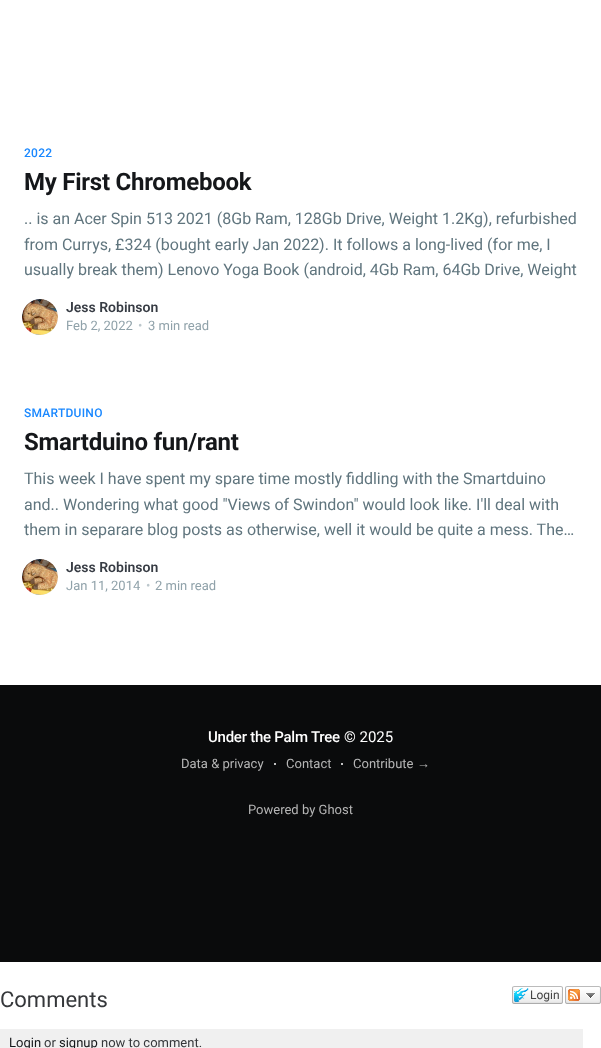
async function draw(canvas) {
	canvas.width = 601;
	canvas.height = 1048;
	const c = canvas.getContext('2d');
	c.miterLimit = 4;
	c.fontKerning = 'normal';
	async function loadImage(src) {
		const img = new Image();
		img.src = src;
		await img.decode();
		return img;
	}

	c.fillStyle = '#fff';
	c.fillRect(0, 0, 601, 1048);
	c.letterSpacing = '0.25px';
	c.font = '500 12px Roboto';
	c.fillStyle = '#1a88ff';
	c.fillText('2022', 24, 157);
	c.letterSpacing = '-0.25px';
	c.font = 'bold 24px Roboto';
	c.fillStyle = '#15171a';
	c.fillText('My First Chromebook', 24, 190);
	c.letterSpacing = '0px';
	c.font = '16px Roboto';
	c.fillStyle = '#60757e';
	for (const [text, x, y] of [
		['.. is an Acer Spin 513 2021 (8Gb Ram, 128Gb Drive, Weight 1.2Kg), refurbished', 24, 224],
		['from Currys, £324 (bought early Jan 2022). It follows a long-lived (for me, I', 24, 250],
		['usually break them) Lenovo Yoga Book (android, 4Gb Ram, 64Gb Drive, Weight', 24, 275],
	]) {
		c.fillText(text, x, y);
	}
	c.fillStyle = '#e4eaed';
	c.beginPath();
	c.arc(40, 317, 18, 0, 2 * Math.PI);
	c.fill();
	c.drawImage(await loadImage('img1.png'), 22, 299, 36, 36);
	c.font = '600 14px Roboto';
	c.fillStyle = '#373c44';
	c.fillText('Jess Robinson', 66, 312);
	c.font = '13px Roboto';
	c.fillStyle = '#90a2aa';
	c.fillText('Feb 2, 2022', 66, 330);
	c.fillStyle = '#bcc7cc';
	c.fillText('•', 138, 330);
	c.fillStyle = '#90a2aa';
	c.fillText('3 min read', 148, 330);
	c.letterSpacing = '0.25px';
	c.font = '500 12px Roboto';
	c.fillStyle = '#1a88ff';
	c.fillText('SMARTDUINO', 24, 417);
	c.letterSpacing = '-0.25px';
	c.font = 'bold 24px Roboto';
	c.fillStyle = '#15171a';
	c.fillText('Smartduino fun/rant', 24, 450);
	c.letterSpacing = '0px';
	c.font = '16px Roboto';
	c.fillStyle = '#60757e';
	for (const [text, x, y] of [
		['This week I have spent my spare time mostly fiddling with the Smartduino', 24, 484],
		['and.. Wondering what good "Views of Swindon" would look like. I\'ll deal with', 24, 510],
		['them in separare blog posts as otherwise, well it would be quite a mess. The…', 24, 535],
	]) {
		c.fillText(text, x, y);
	}
	c.fillStyle = '#e4eaed';
	c.beginPath();
	c.arc(40, 577, 18, 0, 2 * Math.PI);
	c.fill();
	c.drawImage(await loadImage('img2.png'), 22, 559, 36, 36);
	c.font = '600 14px Roboto';
	c.fillStyle = '#373c44';
	c.fillText('Jess Robinson', 66, 572);
	c.font = '13px Roboto';
	c.fillStyle = '#90a2aa';
	c.fillText('Jan 11, 2014', 66, 590);
	c.fillStyle = '#bcc7cc';
	c.fillText('•', 146, 590);
	c.fillStyle = '#90a2aa';
	c.fillText('2 min read', 155, 590);
	c.fillStyle = '#0a0b0c';
	c.fillRect(0, 685, 601, 277);
	c.letterSpacing = '-0.25px';
	c.font = '500 15px Roboto';
	c.fillStyle = '#fff';
	c.fillText('Under the Palm Tree', 208, 742);
	c.letterSpacing = '0px';
	c.font = '15px Roboto';
	c.fillText('© 2025', 344, 742);
	c.font = '13px Roboto';
	c.fillStyle = '#b6b6b6';
	c.fillText('Data & privacy', 181, 768);
	c.fillStyle = '#fff';
	c.beginPath();
	c.arc(275, 764, 1, 0, 2 * Math.PI);
	c.fill();
	c.fillStyle = '#b6b6b6';
	c.fillText('Contact', 286, 768);
	c.fillStyle = '#fff';
	c.beginPath();
	c.arc(342, 764, 1, 0, 2 * Math.PI);
	c.fill();
	c.fillStyle = '#b6b6b6';
	c.fillText('Contribute', 353, 768);
	c.font = '13px Liberation Sans';
	c.fillText('→', 417, 768);
	c.font = '13px Roboto';
	c.fillText('Powered by Ghost', 248, 814);
	c.font = '22px Roboto';
	c.fillStyle = '#35373a';
	c.fillText('Comments', 0, 1007);
	c.drawImage(await loadImage('img3.png'), 512, 986, 48, 18);
	c.font = '12px Roboto';
	c.fillStyle = '#444';
	c.fillText('Login', 530, 999);
	c.drawImage(await loadImage('img4.png'), 560, 986, 3, 18);
	c.drawImage(await loadImage('img5.png'), 565, 986, 36, 18);
	c.fillStyle = '#f0f0f0';
	c.fillRect(0, 1029, 583, 19);
	c.font = '13px Roboto';
	c.fillStyle = '#15171a';
	c.fillText('Login', 9, 1047);
	c.fillStyle = '#35373a';
	c.fillText('or', 44, 1047);
	c.fillStyle = '#15171a';
	c.fillText('signup', 59, 1047);
	c.fillStyle = '#35373a';
	c.fillText('now to comment.', 101, 1047);
}

draw(document.querySelector('canvas'));
